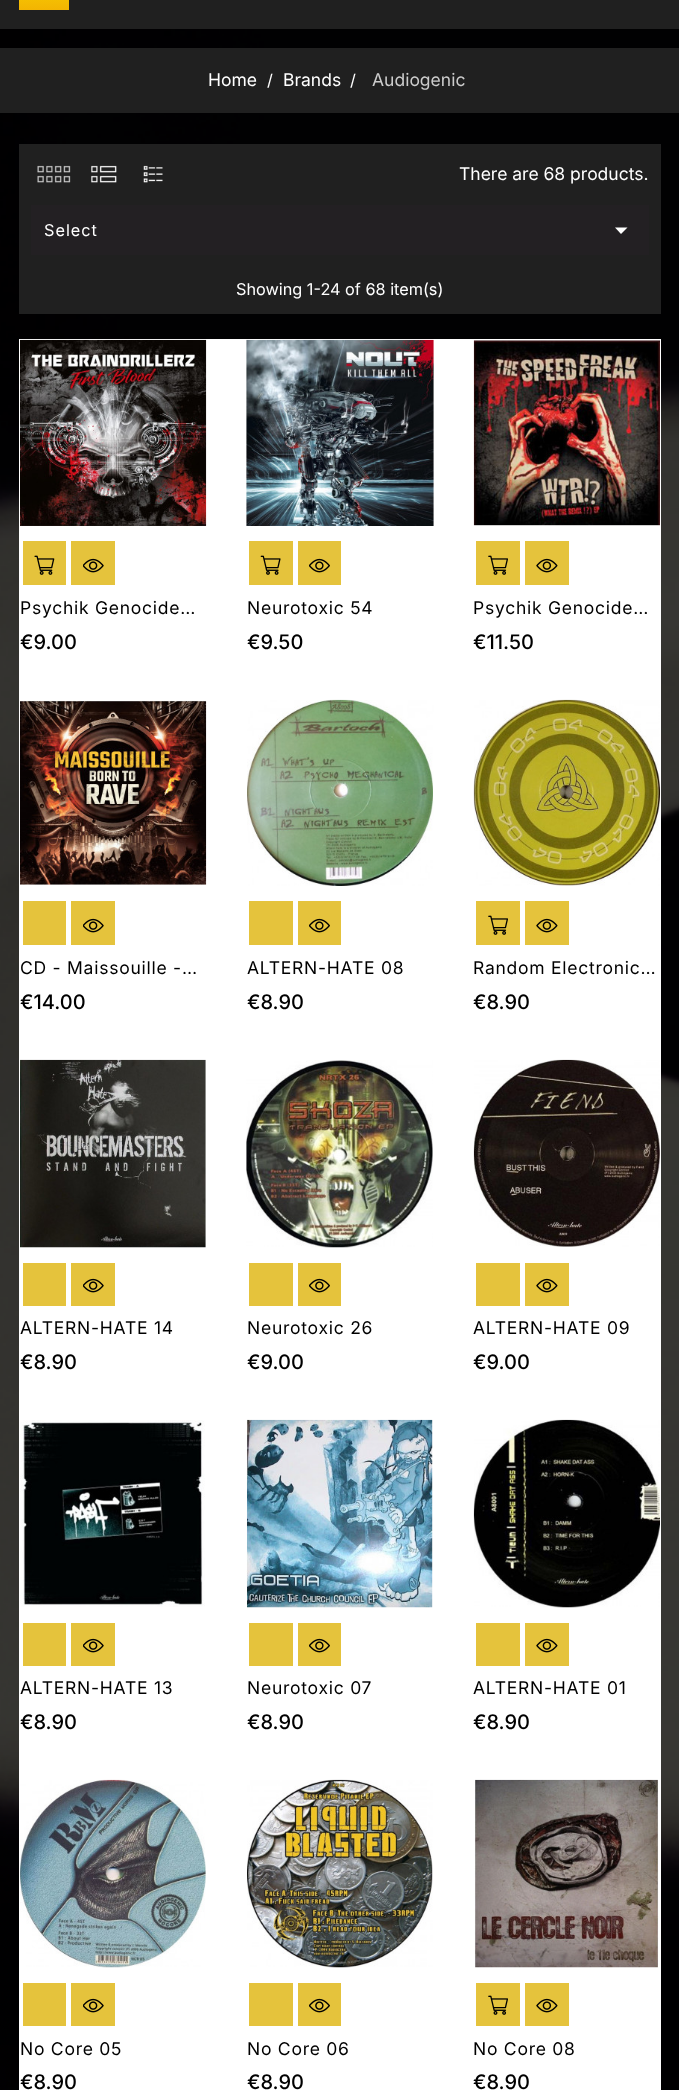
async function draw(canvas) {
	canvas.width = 679;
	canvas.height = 2090;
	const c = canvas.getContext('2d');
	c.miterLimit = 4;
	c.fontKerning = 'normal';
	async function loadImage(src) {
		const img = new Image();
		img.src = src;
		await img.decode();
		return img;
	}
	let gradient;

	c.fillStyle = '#fff';
	c.fillRect(0, 0, 679, 2090);
	c.drawImage(await loadImage('img1.png'), 0, 29, 679, 2061);
	c.fillStyle = '#202020';
	c.fillRect(0, 0, 679, 29);
	gradient = c.createLinearGradient(44, 10, 44, -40);
	gradient.addColorStop(0, '#f3b402');
	gradient.addColorStop(1, '#fbe600');
	c.fillStyle = gradient;
	c.fillRect(19, 0, 50, 10);
	c.fillStyle = '#202020';
	c.fillRect(0, 48, 679, 65);
	c.font = '17.5px Inter';
	c.fillStyle = '#fff';
	c.fillText('Home', 208, 86);
	c.font = '16.25px Inter';
	c.fillText('/', 267, 86);
	c.font = '17.5px Inter';
	c.fillText('Brands', 283, 86);
	c.font = '16.25px Inter';
	c.fillText('/', 350, 86);
	c.font = '17.5px Inter';
	c.fillStyle = '#ccc';
	c.fillText('Audiogenic', 372, 86);
	c.fillStyle = '#202020';
	c.fillRect(19, 144, 642, 170);
	c.drawImage(await loadImage('img2.png'), 37, 165, 34, 18);
	c.drawImage(await loadImage('img3.png'), 91, 165, 26, 18);
	c.drawImage(await loadImage('img4.png'), 143, 165, 20, 18);
	c.fillStyle = '#fff';
	c.fillText('There are 68 products.', 459, 180);
	c.fillStyle = '#232023';
	c.fillRect(31, 205, 618, 50);
	c.letterSpacing = '1px';
	c.font = '16.25px Inter';
	c.fillStyle = '#fff';
	c.fillText('Select', 44, 236);
	c.beginPath();
	c.moveTo(615, 227.5);
	c.lineTo(627.5, 227.5);
	c.lineTo(621, 234);
	c.closePath();
	c.fill();
	c.letterSpacing = '0px';
	c.fillText('Showing 1-24 of 68 item(s)', 236, 295);
	c.fillRect(19, 339, 642, 1751);
	c.drawImage(await loadImage('img5.png'), 20, 339, 187, 187);
	c.fillStyle = '#e5c33c';
	c.fillRect(23, 541, 43, 44);
	c.drawImage(await loadImage('img6.png'), 34, 555, 21, 20);
	c.fillRect(71, 541, 44, 44);
	c.drawImage(await loadImage('img7.png'), 83, 558, 21, 15);
	c.letterSpacing = '0.75px';
	c.font = '17.5px Inter';
	c.fillStyle = '#000';
	c.fillText('Psychik Genocide…', 20, 614);
	c.letterSpacing = '0px';
	c.font = '500 20px Inter';
	c.fillText('€9.00', 20, 649);
	c.drawImage(await loadImage('img8.png'), 246, 339, 188, 187);
	c.fillStyle = '#e5c33c';
	c.fillRect(249, 541, 44, 44);
	c.drawImage(await loadImage('img9.png'), 260, 555, 21, 20);
	c.fillRect(298, 541, 43, 44);
	c.drawImage(await loadImage('img10.png'), 309, 558, 21, 15);
	c.letterSpacing = '0.75px';
	c.font = '17.5px Inter';
	c.fillStyle = '#000';
	c.fillText('Neurotoxic 54', 247, 614);
	c.letterSpacing = '0px';
	c.font = '500 20px Inter';
	c.fillText('€9.50', 247, 649);
	c.drawImage(await loadImage('img11.png'), 473, 340, 187, 186);
	c.fillStyle = '#e5c33c';
	c.fillRect(476, 541, 44, 44);
	c.drawImage(await loadImage('img12.png'), 488, 555, 20, 20);
	c.fillRect(525, 541, 44, 44);
	c.drawImage(await loadImage('img13.png'), 536, 558, 22, 15);
	c.letterSpacing = '0.75px';
	c.font = '17.5px Inter';
	c.fillStyle = '#000';
	c.fillText('Psychik Genocide…', 473, 614);
	c.letterSpacing = '0px';
	c.font = '500 20px Inter';
	c.fillText('€11.50', 473, 649);
	c.drawImage(await loadImage('img14.png'), 20, 700, 187, 185);
	c.fillStyle = '#e5c33c';
	c.fillRect(23, 901, 43, 44);
	c.fillRect(71, 901, 44, 44);
	c.drawImage(await loadImage('img7.png'), 83, 918, 21, 15);
	c.letterSpacing = '0.75px';
	c.font = '17.5px Inter';
	c.fillStyle = '#000';
	c.fillText('CD - Maissouille -…', 20, 974);
	c.letterSpacing = '0px';
	c.font = '500 20px Inter';
	c.fillText('€14.00', 20, 1009);
	c.drawImage(await loadImage('img15.png'), 247, 699, 187, 187);
	c.fillStyle = '#e5c33c';
	c.fillRect(249, 901, 44, 44);
	c.fillRect(298, 901, 43, 44);
	c.drawImage(await loadImage('img10.png'), 309, 918, 21, 15);
	c.letterSpacing = '0.75px';
	c.font = '17.5px Inter';
	c.fillStyle = '#000';
	c.fillText('ALTERN-HATE 08', 247, 974);
	c.letterSpacing = '0px';
	c.font = '500 20px Inter';
	c.fillText('€8.90', 247, 1009);
	c.drawImage(await loadImage('img16.png'), 473, 699, 187, 187);
	c.fillStyle = '#e5c33c';
	c.fillRect(476, 901, 44, 44);
	c.drawImage(await loadImage('img12.png'), 488, 915, 20, 20);
	c.fillRect(525, 901, 44, 44);
	c.drawImage(await loadImage('img13.png'), 536, 918, 22, 15);
	c.letterSpacing = '0.75px';
	c.font = '17.5px Inter';
	c.fillStyle = '#000';
	c.fillText('Random Electronic…', 473, 974);
	c.letterSpacing = '0px';
	c.font = '500 20px Inter';
	c.fillText('€8.90', 473, 1009);
	c.drawImage(await loadImage('img17.png'), 20, 1059, 186, 189);
	c.fillStyle = '#e5c33c';
	c.fillRect(23, 1263, 43, 43);
	c.fillRect(71, 1263, 44, 43);
	c.drawImage(await loadImage('img7.png'), 83, 1278, 21, 15);
	c.letterSpacing = '0.75px';
	c.font = '17.5px Inter';
	c.fillStyle = '#000';
	c.fillText('ALTERN-HATE 14', 20, 1334);
	c.letterSpacing = '0px';
	c.font = '500 20px Inter';
	c.fillText('€8.90', 20, 1369);
	c.drawImage(await loadImage('img18.png'), 246, 1060, 187, 188);
	c.fillStyle = '#e5c33c';
	c.fillRect(249, 1263, 44, 43);
	c.fillRect(298, 1263, 43, 43);
	c.drawImage(await loadImage('img10.png'), 309, 1278, 21, 15);
	c.letterSpacing = '0.75px';
	c.font = '17.5px Inter';
	c.fillStyle = '#000';
	c.fillText('Neurotoxic 26', 247, 1334);
	c.letterSpacing = '0px';
	c.font = '500 20px Inter';
	c.fillText('€9.00', 247, 1369);
	c.drawImage(await loadImage('img19.png'), 473, 1059, 187, 188);
	c.fillStyle = '#e5c33c';
	c.fillRect(476, 1263, 44, 43);
	c.fillRect(525, 1263, 44, 43);
	c.drawImage(await loadImage('img13.png'), 536, 1278, 22, 15);
	c.letterSpacing = '0.75px';
	c.font = '17.5px Inter';
	c.fillStyle = '#000';
	c.fillText('ALTERN-HATE 09', 473, 1334);
	c.letterSpacing = '0px';
	c.font = '500 20px Inter';
	c.fillText('€9.00', 473, 1369);
	c.drawImage(await loadImage('img20.png'), 20, 1420, 185, 187);
	c.fillStyle = '#e5c33c';
	c.fillRect(23, 1623, 43, 43);
	c.fillRect(71, 1623, 44, 43);
	c.drawImage(await loadImage('img7.png'), 83, 1638, 21, 15);
	c.letterSpacing = '0.75px';
	c.font = '17.5px Inter';
	c.fillStyle = '#000';
	c.fillText('ALTERN-HATE 13', 20, 1694);
	c.letterSpacing = '0px';
	c.font = '500 20px Inter';
	c.fillText('€8.90', 20, 1729);
	c.drawImage(await loadImage('img21.png'), 246, 1419, 187, 189);
	c.fillStyle = '#e5c33c';
	c.fillRect(249, 1623, 44, 43);
	c.fillRect(298, 1623, 43, 43);
	c.drawImage(await loadImage('img10.png'), 309, 1638, 21, 15);
	c.letterSpacing = '0.75px';
	c.font = '17.5px Inter';
	c.fillStyle = '#000';
	c.fillText('Neurotoxic 07', 247, 1694);
	c.letterSpacing = '0px';
	c.font = '500 20px Inter';
	c.fillText('€8.90', 247, 1729);
	c.drawImage(await loadImage('img22.png'), 473, 1419, 187, 189);
	c.fillStyle = '#e5c33c';
	c.fillRect(476, 1623, 44, 43);
	c.fillRect(525, 1623, 44, 43);
	c.drawImage(await loadImage('img13.png'), 536, 1638, 22, 15);
	c.letterSpacing = '0.75px';
	c.font = '17.5px Inter';
	c.fillStyle = '#000';
	c.fillText('ALTERN-HATE 01', 473, 1694);
	c.letterSpacing = '0px';
	c.font = '500 20px Inter';
	c.fillText('€8.90', 473, 1729);
	c.drawImage(await loadImage('img23.png'), 20, 1779, 186, 189);
	c.fillStyle = '#e5c33c';
	c.fillRect(23, 1983, 43, 43);
	c.fillRect(71, 1983, 44, 43);
	c.drawImage(await loadImage('img7.png'), 83, 1998, 21, 15);
	c.letterSpacing = '0.75px';
	c.font = '17.5px Inter';
	c.fillStyle = '#000';
	c.fillText('No Core 05', 20, 2055);
	c.letterSpacing = '0px';
	c.font = '500 20px Inter';
	c.fillText('€8.90', 20, 2089);
	c.drawImage(await loadImage('img24.png'), 247, 1779, 186, 189);
	c.fillStyle = '#e5c33c';
	c.fillRect(249, 1983, 44, 43);
	c.fillRect(298, 1983, 43, 43);
	c.drawImage(await loadImage('img10.png'), 309, 1998, 21, 15);
	c.letterSpacing = '0.75px';
	c.font = '17.5px Inter';
	c.fillStyle = '#000';
	c.fillText('No Core 06', 247, 2055);
	c.letterSpacing = '0px';
	c.font = '500 20px Inter';
	c.fillText('€8.90', 247, 2089);
	c.drawImage(await loadImage('img25.png'), 474, 1779, 185, 189);
	c.fillStyle = '#e5c33c';
	c.fillRect(476, 1983, 44, 43);
	c.drawImage(await loadImage('img12.png'), 488, 1995, 20, 20);
	c.fillRect(525, 1983, 44, 43);
	c.drawImage(await loadImage('img13.png'), 536, 1998, 22, 15);
	c.letterSpacing = '0.75px';
	c.font = '17.5px Inter';
	c.fillStyle = '#000';
	c.fillText('No Core 08', 473, 2055);
	c.letterSpacing = '0px';
	c.font = '500 20px Inter';
	c.fillText('€8.90', 473, 2089);
}

draw(document.querySelector('canvas'));
